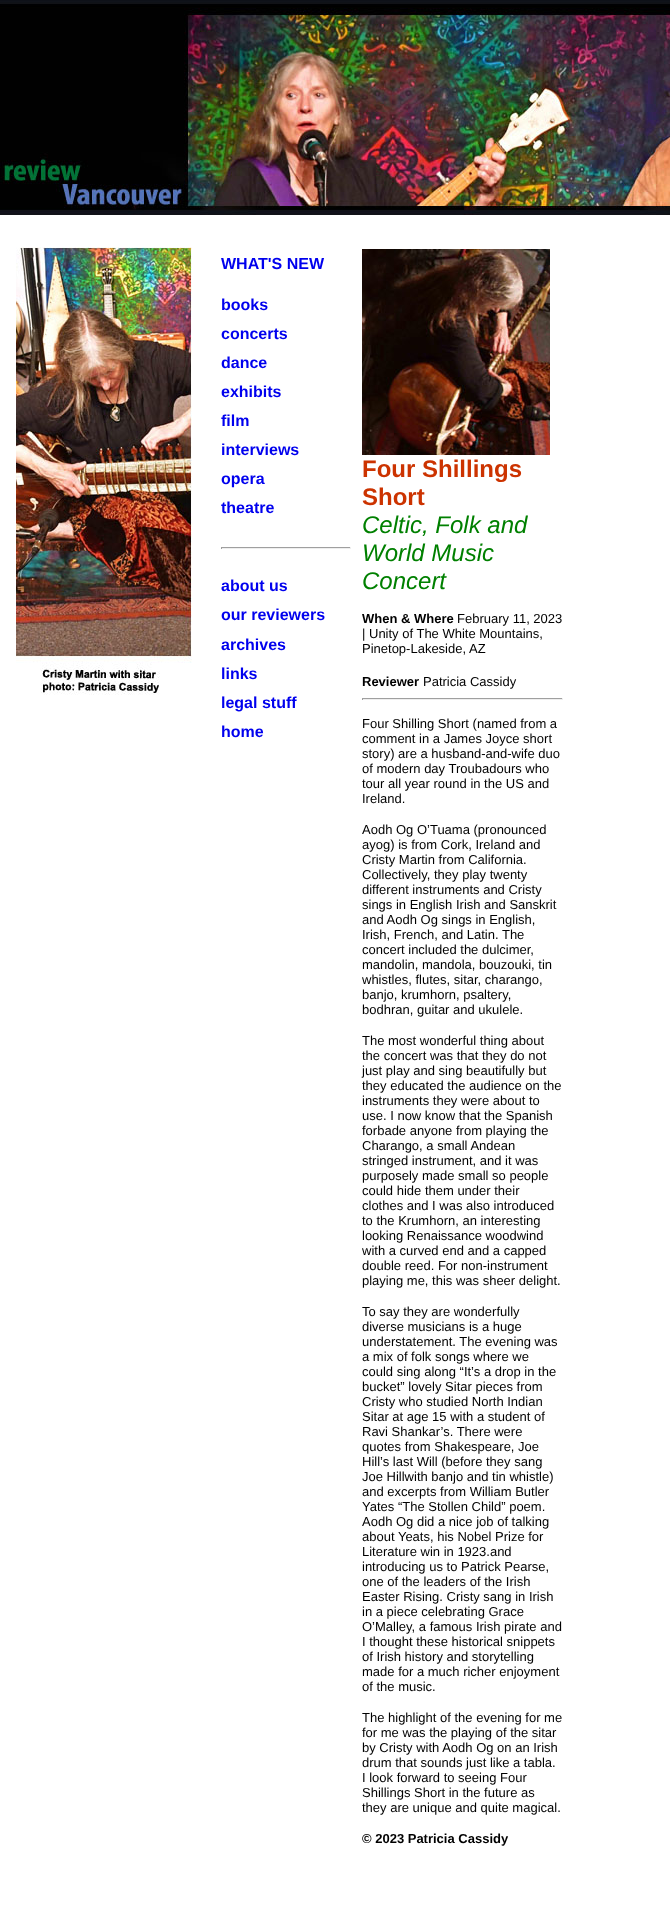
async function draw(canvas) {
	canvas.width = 670;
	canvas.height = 1922;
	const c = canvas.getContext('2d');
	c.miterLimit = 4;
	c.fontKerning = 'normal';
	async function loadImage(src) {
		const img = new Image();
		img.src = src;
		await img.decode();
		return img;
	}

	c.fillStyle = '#fff';
	c.fillRect(0, 0, 670, 1922);
	c.drawImage(await loadImage('img1.png'), 0, 0, 670, 215);
	c.drawImage(await loadImage('img2.png'), 16, 247, 176, 448);
	c.font = 'bold 16px Liberation Sans';
	c.fillStyle = '#00e';
	for (const [text, x, y] of [
		['WHAT\'S NEW', 221, 269],
		['books', 221, 310],
		['concerts', 221, 339],
		['dance', 221, 368],
		['exhibits', 221, 397],
		['film', 221, 426],
		['interviews', 221, 455],
		['opera', 221, 484],
		['theatre', 221, 513],
	]) {
		c.fillText(text, x, y);
	}
	for (const [x, y, w, h, color] of [
		[221, 547, 130, 1, '#9f9f9f'],
		[350, 547, 1, 2, '#eee'],
		[221, 548, 130, 1, '#eee'],
		[221, 547, 1, 2, '#9f9f9f'],
	]) {
		c.fillStyle = color;
		c.fillRect(x, y, w, h);
	}
	c.fillStyle = '#00e';
	for (const [text, x, y] of [
		['about us', 221, 591],
		['our reviewers', 221, 620],
		['archives', 221, 650],
		['links', 221, 679],
		['legal stuff', 221, 708],
		['home', 221, 737],
	]) {
		c.fillText(text, x, y);
	}
	c.drawImage(await loadImage('img3.png'), 362, 249, 188, 206);
	c.font = 'bold 24px Liberation Sans';
	c.fillStyle = '#c30';
	c.fillText('Four Shillings', 362, 477);
	c.fillText('Short', 362, 505);
	c.font = 'italic 24px Liberation Sans';
	c.fillStyle = '#008000';
	for (const [text, x, y] of [
		['Celtic, Folk and', 362, 533],
		['World Music', 362, 561],
		['Concert', 362, 589],
	]) {
		c.fillText(text, x, y);
	}
	c.font = 'bold 13px Liberation Sans';
	c.fillStyle = '#000';
	c.fillText('When & Where', 362, 623);
	c.font = '13px Liberation Sans';
	for (const [text, x, y] of [
		['February 11, 2023', 457, 623],
		['| Unity of The White Mountains,', 362, 638],
		['Pinetop-Lakeside, AZ', 362, 653],
	]) {
		c.fillText(text, x, y);
	}
	c.font = 'bold 13px Liberation Sans';
	c.fillText('Reviewer', 362, 686);
	c.font = '13px Liberation Sans';
	c.fillText('Patricia Cassidy', 423, 686);
	for (const [x, y, w, h, color] of [
		[362, 698, 201, 1, '#9f9f9f'],
		[562, 698, 1, 2, '#eee'],
		[362, 699, 201, 1, '#eee'],
		[362, 698, 1, 2, '#9f9f9f'],
	]) {
		c.fillStyle = color;
		c.fillRect(x, y, w, h);
	}
	c.fillStyle = '#000';
	for (const [text, x, y] of [
		['Four Shilling Short (named from a', 362, 728],
		['comment in a James Joyce short', 362, 743],
		['story) are a husband-and-wife duo', 362, 758],
		['of modern day Troubadours who', 362, 773],
		['tour all year round in the US and', 362, 788],
		['Ireland.', 362, 803],
		['Aodh Og O’Tuama (pronounced', 362, 834],
		['ayog) is from Cork, Ireland and', 362, 849],
		['Cristy Martin from California.', 362, 864],
		['Collectively, they play twenty', 362, 879],
		['different instruments and Cristy', 362, 894],
		['sings in English Irish and Sanskrit', 362, 909],
		['and Aodh Og sings in English,', 362, 924],
		['Irish, French, and Latin. The', 362, 939],
		['concert included the dulcimer,', 362, 954],
		['mandolin, mandola, bouzouki, tin', 362, 969],
		['whistles, flutes, sitar, charango,', 362, 984],
		['banjo, krumhorn, psaltery,', 362, 999],
		['bodhran, guitar and ukulele.', 362, 1014],
		['The most wonderful thing about', 362, 1045],
		['the concert was that they do not', 362, 1060],
		['just play and sing beautifully but', 362, 1075],
		['they educated the audience on the', 362, 1090],
		['instruments they were about to', 362, 1105],
		['use. I now know that the Spanish', 362, 1120],
		['forbade anyone from playing the', 362, 1135],
		['Charango, a small Andean', 362, 1150],
		['stringed instrument, and it was', 362, 1165],
		['purposely made small so people', 362, 1180],
		['could hide them under their', 362, 1195],
		['clothes and I was also introduced', 362, 1210],
		['to the Krumhorn, an interesting', 362, 1225],
		['looking Renaissance woodwind', 362, 1240],
		['with a curved end and a capped', 362, 1255],
		['double reed. For non-instrument', 362, 1270],
		['playing me, this was sheer delight.', 362, 1285],
		['To say they are wonderfully', 362, 1316],
		['diverse musicians is a huge', 362, 1331],
		['understatement. The evening was', 362, 1346],
		['a mix of folk songs where we', 362, 1361],
		['could sing along “It’s a drop in the', 362, 1376],
		['bucket” lovely Sitar pieces from', 362, 1391],
		['Cristy who studied North Indian', 362, 1406],
		['Sitar at age 15 with a student of', 362, 1421],
		['Ravi Shankar’s. There were', 362, 1436],
		['quotes from Shakespeare, Joe', 362, 1451],
		['Hill’s last Will (before they sang', 362, 1466],
		['Joe Hillwith banjo and tin whistle)', 362, 1481],
		['and excerpts from William Butler', 362, 1496],
		['Yates “The Stollen Child” poem.', 362, 1511],
		['Aodh Og did a nice job of talking', 362, 1526],
		['about Yeats, his Nobel Prize for', 362, 1541],
		['Literature win in 1923.and', 362, 1556],
		['introducing us to Patrick Pearse,', 362, 1571],
		['one of the leaders of the Irish', 362, 1586],
		['Easter Rising. Cristy sang in Irish', 362, 1601],
		['in a piece celebrating Grace', 362, 1616],
		['O’Malley, a famous Irish pirate and', 362, 1631],
		['I thought these historical snippets', 362, 1646],
		['of Irish history and storytelling', 362, 1661],
		['made for a much richer enjoyment', 362, 1676],
		['of the music.', 362, 1691],
		['The highlight of the evening for me', 362, 1722],
		['for me was the playing of the sitar', 362, 1737],
		['by Cristy with Aodh Og on an Irish', 362, 1752],
		['drum that sounds just like a tabla.', 362, 1767],
		['I look forward to seeing Four', 362, 1782],
		['Shillings Short in the future as', 362, 1797],
		['they are unique and quite magical.', 362, 1812],
	]) {
		c.fillText(text, x, y);
	}
	c.font = 'bold 13px Liberation Sans';
	c.fillText('© 2023 Patricia Cassidy', 362, 1843);
}

draw(document.querySelector('canvas'));
